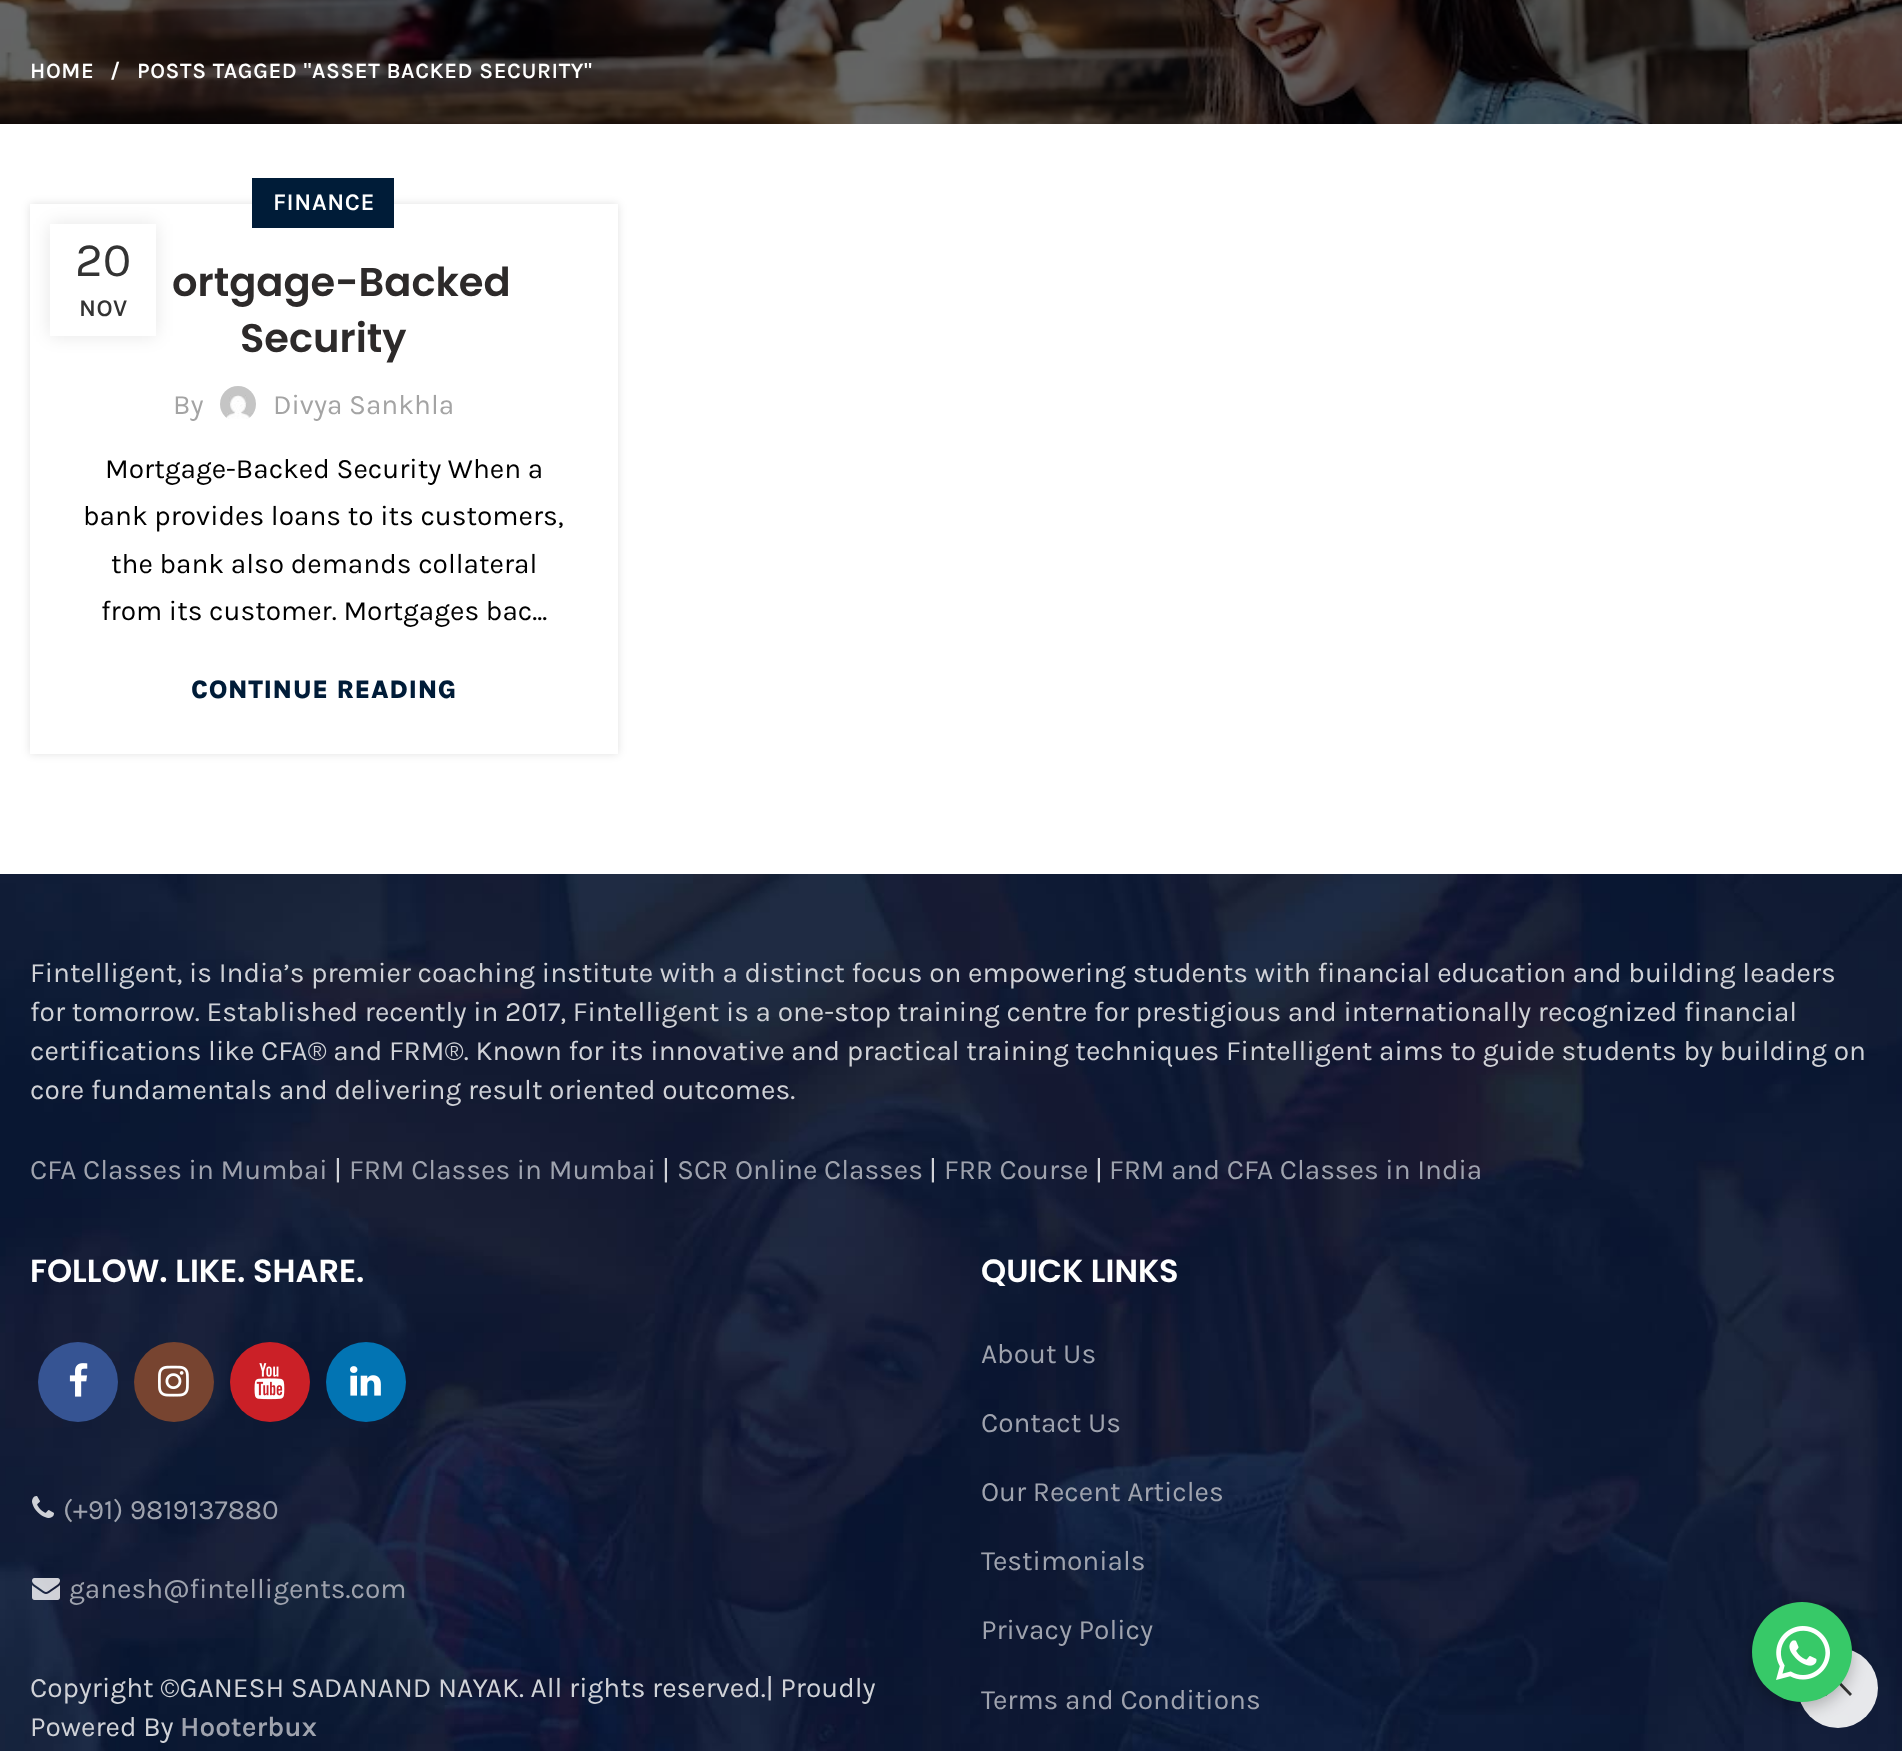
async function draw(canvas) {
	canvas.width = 1902;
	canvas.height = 1751;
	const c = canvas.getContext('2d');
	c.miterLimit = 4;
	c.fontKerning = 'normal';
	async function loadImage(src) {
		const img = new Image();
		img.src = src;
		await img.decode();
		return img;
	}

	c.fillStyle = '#fff';
	c.fillRect(0, 0, 1902, 1751);
	c.drawImage(await loadImage('img1.png'), 0, 0, 1902, 124);
	c.letterSpacing = '0.6px';
	c.font = '600 22px Karla';
	for (const [text, x, y] of [
		['HOME', 30, 78],
		['/', 110, 78],
		['POSTS TAGGED "ASSET BACKED SECURITY"', 137, 78],
	]) {
		c.fillText(text, x, y);
	}
	c.save();
	c.beginPath();
	c.moveTo(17, 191);
	c.lineTo(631, 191);
	c.lineTo(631, 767);
	c.lineTo(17, 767);
	c.closePath();
	c.moveTo(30, 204);
	c.lineTo(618, 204);
	c.lineTo(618, 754);
	c.lineTo(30, 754);
	c.closePath();
	c.clip('evenodd');
	c.fillStyle = '#0000001f';
	c.filter = 'blur(4px)';
	c.beginPath();
	c.rect(30, 204, 588, 550);
	c.fill();
	c.filter = 'none';
	c.restore();
	c.fillStyle = '#001c38';
	c.fillRect(252, 178, 142, 50);
	c.font = '600 24px Karla';
	c.fillStyle = '#fff';
	c.fillText('FINANCE', 273, 210);
	c.letterSpacing = '0px';
	c.font = '600 40px Poppins';
	c.fillStyle = '#2d2a2a';
	c.fillText('ortgage-Backed', 172, 296);
	c.fillText('Security', 240, 352);
	c.font = '28px Karla';
	c.fillStyle = '#a4a4a4';
	c.fillText('By', 173, 414);
	c.drawImage(await loadImage('img2.png'), 220, 386, 36, 33);
	c.fillText('Divya Sankhla', 273, 414);
	c.fillStyle = '#000';
	for (const [text, x, y] of [
		['Mortgage-Backed Security When a', 105, 478],
		['bank provides loans to its customers,', 83, 525],
		['the bank also demands collateral', 111, 573],
		['from its customer. Mortgages bac...', 101, 620],
	]) {
		c.fillText(text, x, y);
	}
	c.letterSpacing = '0.6px';
	c.font = '800 26px Karla';
	c.fillStyle = '#001c38';
	c.fillText('CONTINUE READING', 191, 698);
	c.fillStyle = '#0000001a';
	c.filter = 'blur(9px)';
	c.beginPath();
	c.rect(50, 224, 106, 112);
	c.fill();
	c.filter = 'none';
	c.fillStyle = '#fff';
	c.fillRect(50, 224, 106, 112);
	c.letterSpacing = '0px';
	c.font = '48px Karla';
	c.fillStyle = '#333';
	c.fillText('20', 75, 276);
	c.letterSpacing = '0.6px';
	c.font = '600 24px Karla';
	c.fillText('NOV', 79, 316);
	c.drawImage(await loadImage('img3.png'), 0, 874, 1902, 877);
	c.letterSpacing = '0px';
	c.font = '28px Karla';
	c.fillStyle = '#d0d2d7';
	for (const [text, x, y] of [
		['Fintelligent, is India’s premier coaching institute with a distinct focus on empowering students with financial education and building leaders', 30, 982],
		['for tomorrow. Established recently in 2017, Fintelligent is a one-stop training centre for prestigious and internationally recognized financial', 30, 1021],
		['certifications like CFA® and FRM®. Known for its innovative and practical training techniques Fintelligent aims to guide students by building on', 30, 1060],
		['core fundamentals and delivering result oriented outcomes.', 30, 1099],
	]) {
		c.fillText(text, x, y);
	}
	c.fillStyle = '#9fa3ae';
	c.fillText('CFA Classes in Mumbai', 30, 1179);
	c.fillStyle = '#d0d2d7';
	c.fillText('|', 334, 1179);
	c.fillStyle = '#9fa3ae';
	c.fillText('FRM Classes in Mumbai', 349, 1179);
	c.fillStyle = '#d0d2d7';
	c.fillText('|', 662, 1179);
	c.fillStyle = '#9fa3ae';
	c.fillText('SCR Online Classes', 677, 1179);
	c.fillStyle = '#d0d2d7';
	c.fillText('|', 929, 1179);
	c.fillStyle = '#9fa3ae';
	c.fillText('FRR Course', 944, 1179);
	c.fillStyle = '#d0d2d7';
	c.fillText('|', 1095, 1179);
	c.fillStyle = '#9fa3ae';
	c.fillText('FRM and CFA Classes in India', 1109, 1179);
	c.font = '600 32px Poppins';
	c.fillStyle = '#fff';
	c.fillText('FOLLOW. LIKE. SHARE.', 30, 1282);
	c.fillStyle = '#365493';
	c.beginPath();
	c.arc(78, 1382, 40, 0, 2 * Math.PI);
	c.fill();
	c.drawImage(await loadImage('img4.png'), 69, 1363, 19, 34);
	c.fillStyle = '#774430';
	c.beginPath();
	c.arc(174, 1382, 40, 0, 2 * Math.PI);
	c.fill();
	c.drawImage(await loadImage('img5.png'), 158, 1365, 31, 32);
	c.fillStyle = '#cb2027';
	c.beginPath();
	c.arc(270, 1382, 40, 0, 2 * Math.PI);
	c.fill();
	c.drawImage(await loadImage('img6.png'), 254, 1363, 31, 37);
	c.fillStyle = '#0274b3';
	c.beginPath();
	c.arc(366, 1382, 40, 0, 2 * Math.PI);
	c.fill();
	c.drawImage(await loadImage('img7.png'), 350, 1366, 31, 30);
	c.drawImage(await loadImage('img8.png'), 32, 1496, 22, 22);
	c.font = '28px Karla';
	c.fillStyle = '#9fa3ae';
	c.fillText('(+91) 9819137880', 63, 1519);
	c.drawImage(await loadImage('img9.png'), 32, 1578, 28, 22);
	c.fillText('ganesh@fintelligents.com', 69, 1598);
	c.fillStyle = '#d0d2d7';
	c.fillText('Copyright ©GANESH SADANAND NAYAK. All rights reserved.| Proudly', 30, 1697);
	c.fillText('Powered By', 30, 1736);
	c.font = '600 28px Karla';
	c.fillStyle = '#9fa3ae';
	c.fillText('Hooterbux', 180, 1736);
	c.font = '600 32px Poppins';
	c.fillStyle = '#fff';
	c.fillText('QUICK LINKS', 981, 1282);
	c.font = '28px Karla';
	c.fillStyle = '#9fa3ae';
	for (const [text, x, y] of [
		['About Us', 981, 1363],
		['Contact Us', 981, 1432],
		['Our Recent Articles', 981, 1501],
		['Testimonials', 981, 1570],
		['Privacy Policy', 981, 1639],
		['Terms and Conditions', 981, 1709],
	]) {
		c.fillText(text, x, y);
	}
	c.fillStyle = '#ffffffe6';
	c.beginPath();
	c.arc(1838, 1688, 40, 0, 2 * Math.PI);
	c.fill();
	c.fillStyle = '#333';
	c.beginPath();
	c.moveTo(1838, 1679.5);
	c.lineTo(1852, 1694);
	c.lineTo(1850, 1696);
	c.lineTo(1838, 1683.5);
	c.lineTo(1826, 1696);
	c.lineTo(1824, 1694);
	c.closePath();
	c.fill();
	c.fillStyle = '#0000003d';
	c.filter = 'blur(8px)';
	c.beginPath();
	c.roundRect(1752, 1608, 100, 100, 50);
	c.fill();
	c.filter = 'none';
	c.fillStyle = '#37c968';
	c.beginPath();
	c.arc(1802, 1652, 50, 0, 2 * Math.PI);
	c.fill();
	c.drawImage(await loadImage('img10.png'), 1776, 1626, 54, 54);
}

draw(document.querySelector('canvas'));
